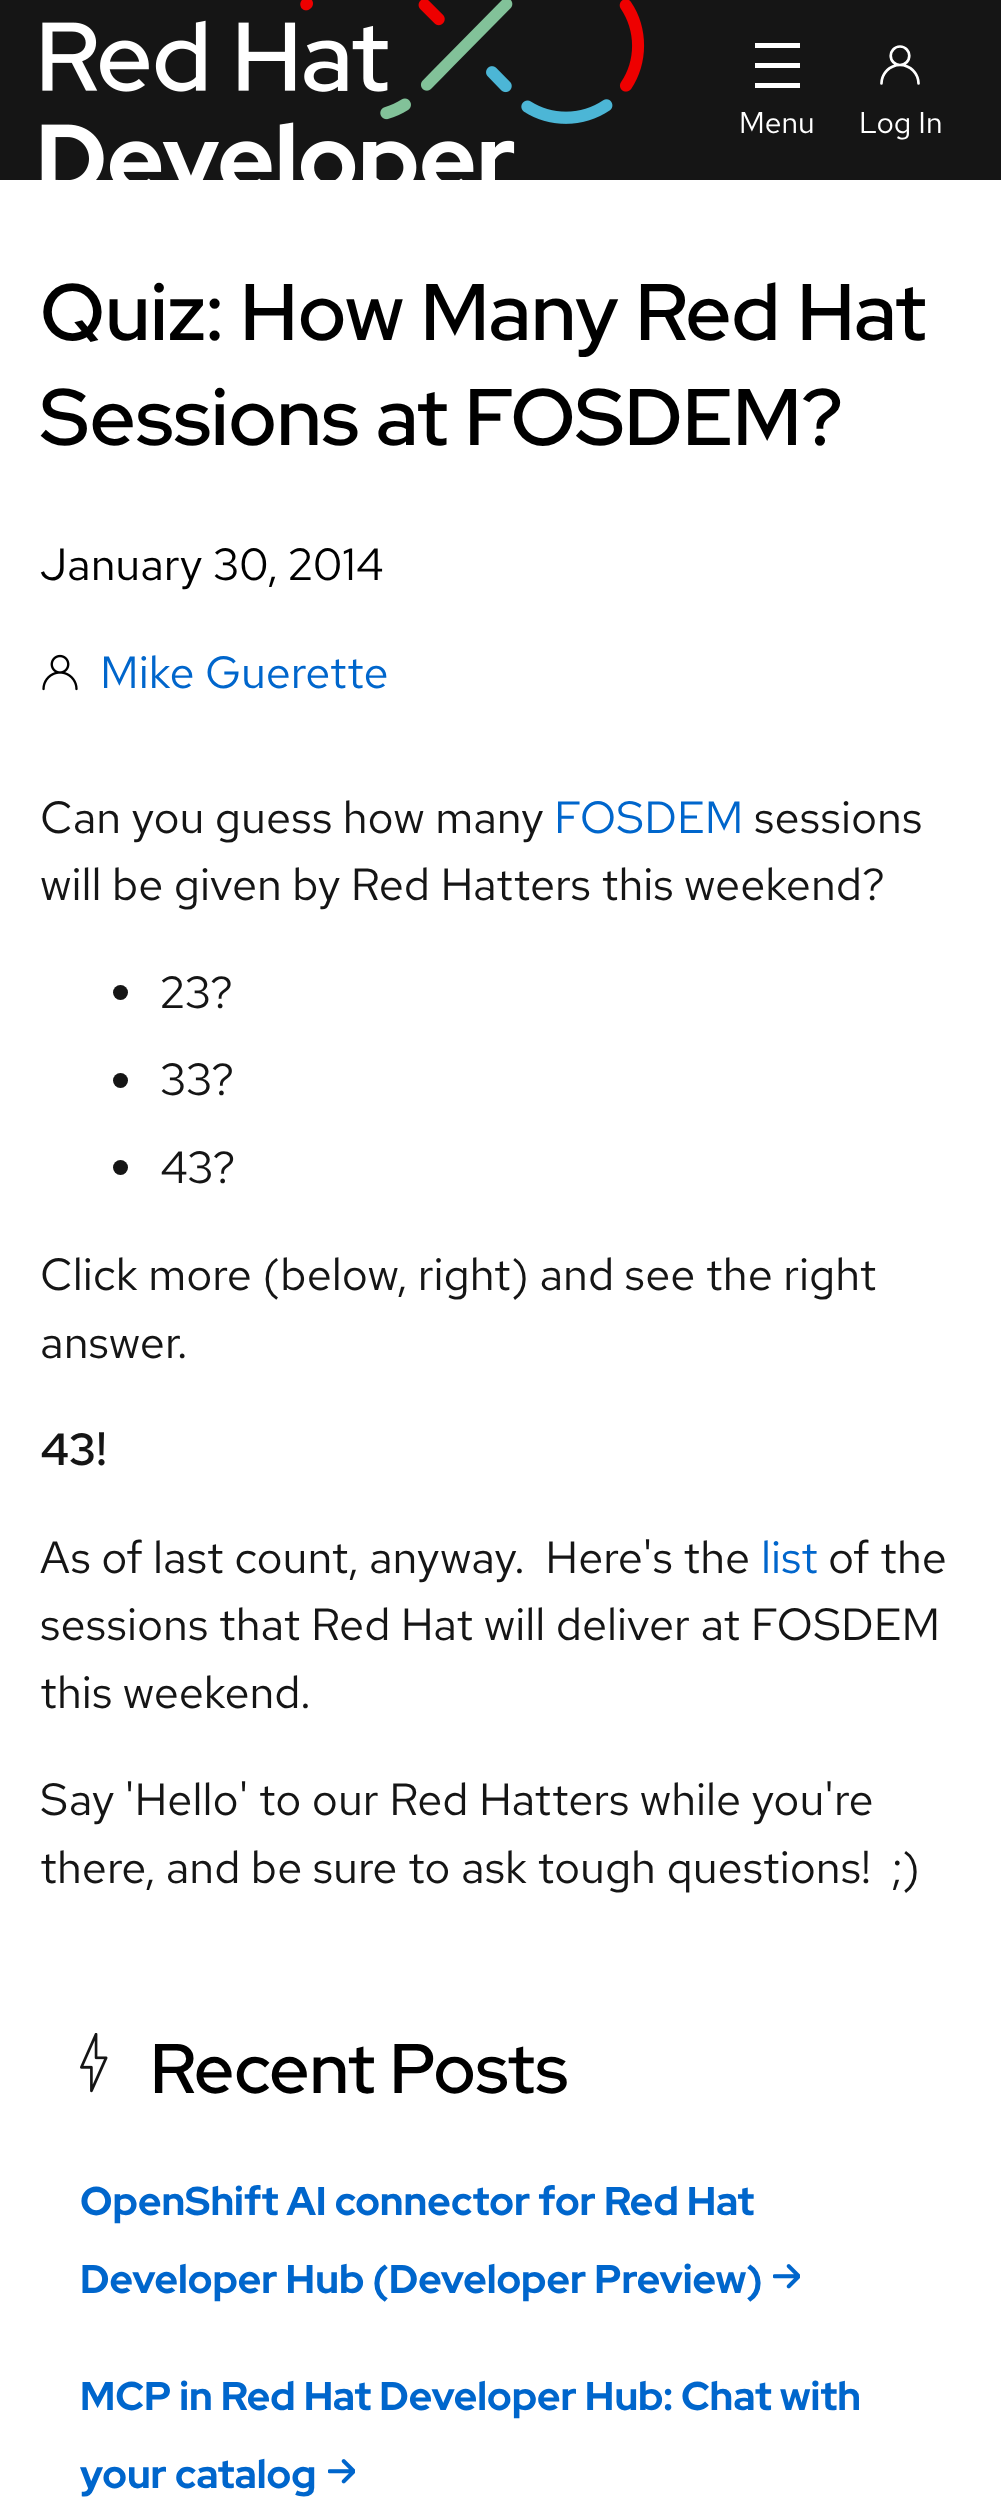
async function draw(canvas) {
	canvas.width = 1001;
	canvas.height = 2497;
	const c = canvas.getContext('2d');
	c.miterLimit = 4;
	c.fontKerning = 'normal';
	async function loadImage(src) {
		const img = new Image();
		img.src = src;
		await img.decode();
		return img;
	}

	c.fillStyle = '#fff';
	c.fillRect(0, 0, 1001, 2497);
	c.fillStyle = '#151515';
	c.fillRect(0, 0, 1001, 180);
	c.drawImage(await loadImage('img1.png'), 41, 0, 604, 180);
	for (const [x, y, w, h, color] of [
		[755, 43, 45, 5, '#fff'],
		[755, 63, 45, 5, '#fff'],
		[755, 83, 45, 5, '#fff'],
	]) {
		c.fillStyle = color;
		c.fillRect(x, y, w, h);
	}
	c.font = '30px "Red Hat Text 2"';
	c.fillText('Menu', 739, 133);
	c.drawImage(await loadImage('img2.png'), 880, 45, 40, 40);
	c.fillText('Log In', 859, 133);
	c.font = '500 80px Red Hat Display';
	c.fillStyle = '#000';
	c.fillText('Quiz: How Many Red Hat', 40, 340);
	c.fillText('Sessions at FOSDEM?', 40, 445);
	c.font = '45px Red Hat Text';
	c.fillText('January 30, 2014', 40, 580);
	c.drawImage(await loadImage('img3.png'), 42, 654, 36, 37);
	c.fillStyle = '#06c';
	c.fillText('Mike Guerette', 100, 688);
	c.fillStyle = '#151515';
	c.fillText('Can you guess how many', 40, 833);
	c.fillStyle = '#06c';
	c.fillText('FOSDEM', 554, 833);
	c.fillStyle = '#151515';
	c.fillText('sessions', 754, 833);
	c.fillText('will be given by Red Hatters this weekend?', 40, 900);
	c.beginPath();
	c.arc(120.5, 992.5, 7.5, 0, 2 * Math.PI);
	c.fill();
	c.fillText('23?', 160, 1008);
	c.beginPath();
	c.arc(120.5, 1080.5, 7.5, 0, 2 * Math.PI);
	c.fill();
	c.fillText('33?', 160, 1095);
	c.beginPath();
	c.arc(120.5, 1167.5, 7.5, 0, 2 * Math.PI);
	c.fill();
	for (const [text, x, y] of [
		['43?', 160, 1183],
		['Click more (below, right) and see the right', 40, 1290],
		['answer.', 40, 1358],
	]) {
		c.fillText(text, x, y);
	}
	c.font = '500 45px Red Hat Text';
	c.fillText('43!', 40, 1465);
	c.font = '45px Red Hat Text';
	c.fillText('As of last count, anyway.  Here\'s the', 40, 1573);
	c.fillStyle = '#06c';
	c.fillText('list', 761, 1573);
	c.fillStyle = '#151515';
	for (const [text, x, y] of [
		['of the', 828, 1573],
		['sessions that Red Hat will deliver at FOSDEM', 40, 1640],
		['this weekend.', 40, 1708],
		['Say \'Hello\' to our Red Hatters while you\'re', 40, 1815],
		['there, and be sure to ask tough questions!  ;)', 40, 1883],
	]) {
		c.fillText(text, x, y);
	}
	c.drawImage(await loadImage('img4.png'), 80, 2033, 28, 60);
	c.font = '500 70px Red Hat Display';
	c.fillStyle = '#000';
	c.fillText('Recent Posts', 150, 2093);
	c.font = 'bold 40px Red Hat Display';
	c.fillStyle = '#06c';
	c.fillText('OpenShift AI connector for Red Hat', 80, 2215);
	c.fillText('Developer Hub (Developer Preview)', 80, 2293);
	c.drawImage(await loadImage('img5.png'), 773, 2264, 27, 25);
	c.fillText('MCP in Red Hat Developer Hub: Chat with', 80, 2410);
	c.fillText('your catalog', 80, 2488);
	c.drawImage(await loadImage('img5.png'), 328, 2459, 27, 25);
}

draw(document.querySelector('canvas'));
